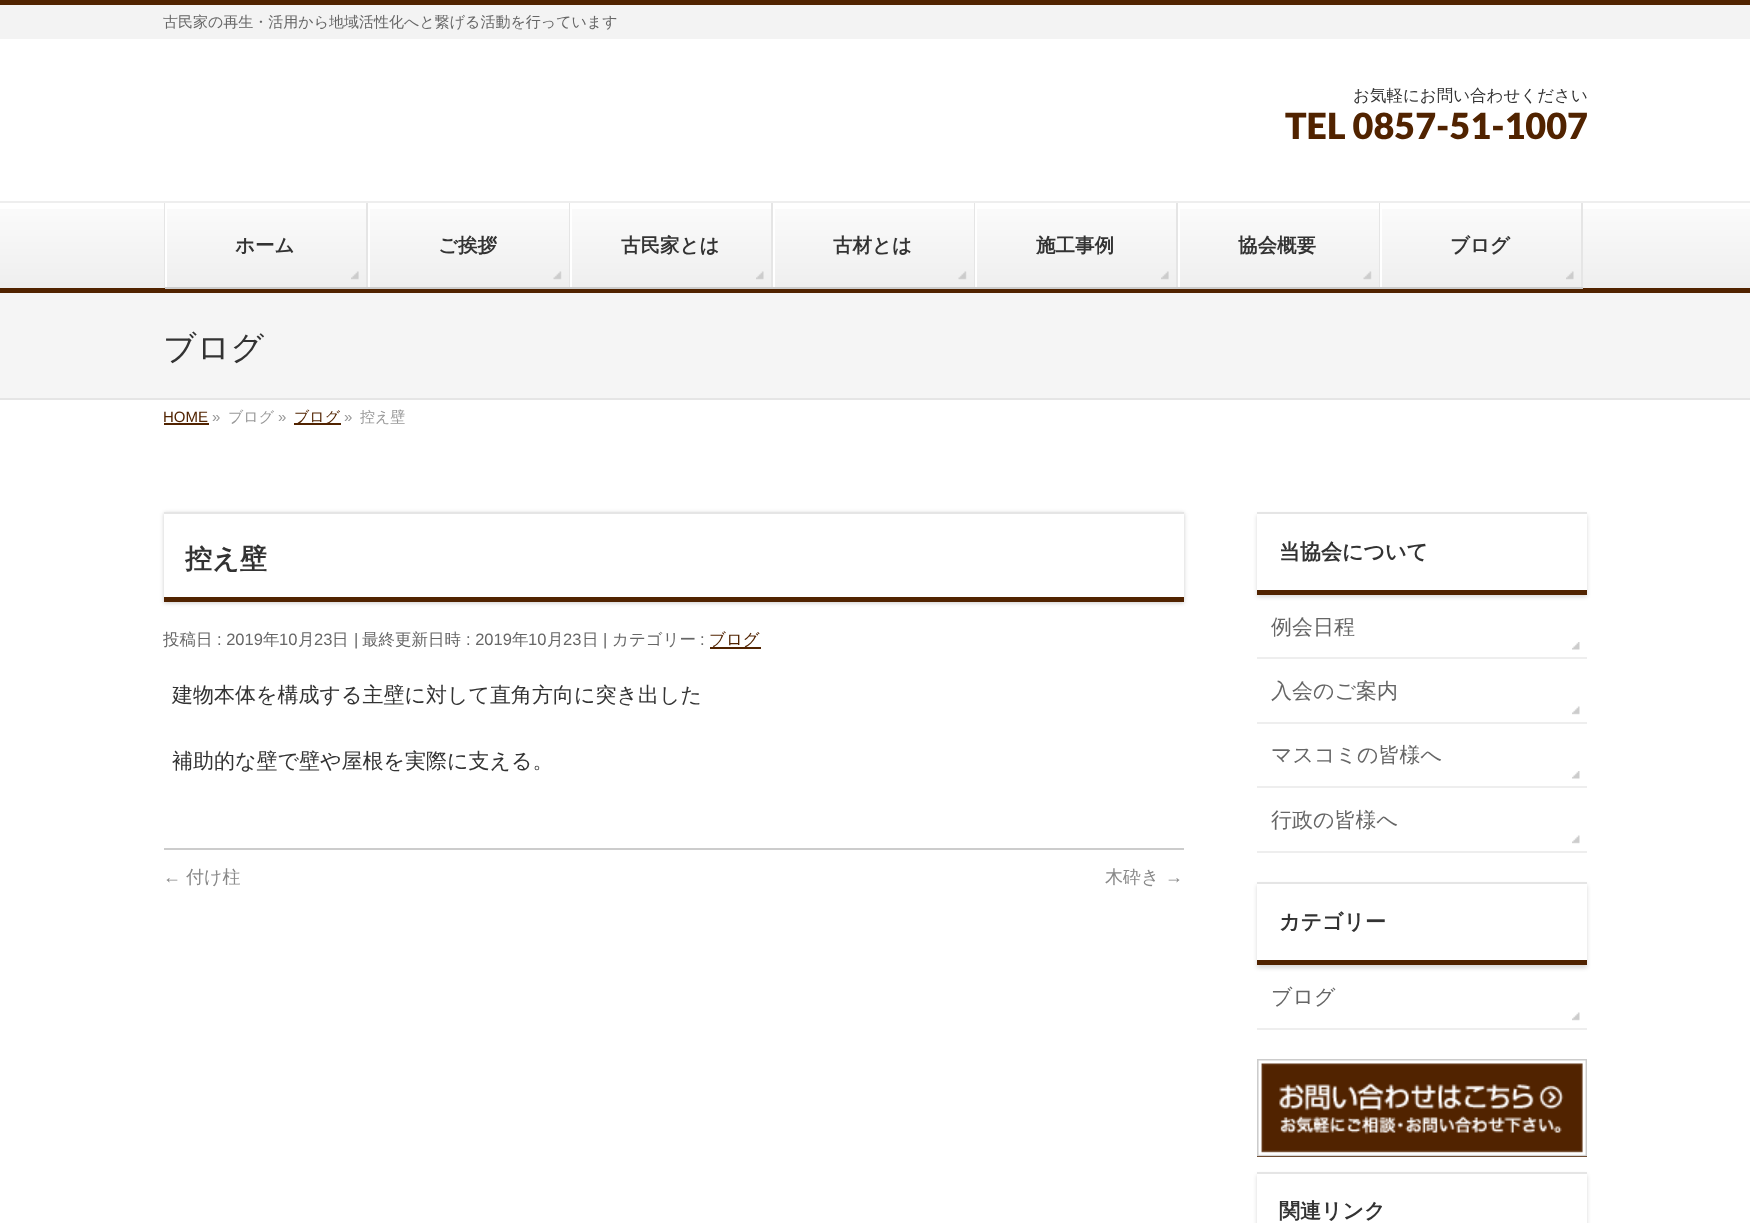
async function draw(canvas) {
	canvas.width = 1750;
	canvas.height = 1223;
	const c = canvas.getContext('2d');
	c.miterLimit = 4;
	c.fontKerning = 'normal';
	async function loadImage(src) {
		const img = new Image();
		img.src = src;
		await img.decode();
		return img;
	}

	c.fillStyle = '#fff';
	c.fillRect(0, 0, 1750, 1223);
	c.fillStyle = '#f3f3f3';
	c.fillRect(0, 5, 1750, 34);
	c.fillStyle = '#512300';
	c.fillRect(0, 0, 1750, 5);
	c.font = '500 15px WenQuanYi Zen Hei';
	c.fillStyle = '#666';
	c.fillText('古民家の再生・活用から地域活性化へと繋げる活動を行っています', 163, 27);
	c.font = '500 16.5px WenQuanYi Zen Hei';
	c.fillStyle = '#333';
	c.fillText('お気軽にお問い合わせください', 1353, 101);
	c.font = '900 36px Lato';
	c.fillStyle = '#512300';
	c.fillText('TEL 0857-51-1007', 1285, 139);
	c.drawImage(await loadImage('img1.png'), 0, 209, 1750, 79);
	for (const [x, y, w, h, color] of [
		[0, 201, 1750, 2, '#eee'],
		[0, 288, 1750, 5, '#512300'],
		[164, 203, 1, 85, '#e5e5e5'],
		[165, 203, 2, 85, '#fff'],
	]) {
		c.fillStyle = color;
		c.fillRect(x, y, w, h);
	}
	c.drawImage(await loadImage('img2.png'), 351, 271, 8, 9);
	c.fillStyle = '#e5e5e5';
	c.fillRect(366, 203, 2, 85);
	c.fillStyle = '#ccc';
	c.fillRect(165, 287, 203, 2);
	c.font = 'bold 19.5px WenQuanYi Zen Hei';
	c.fillStyle = '#333';
	c.fillText('ホーム', 235, 252);
	c.fillStyle = '#fff';
	c.fillRect(368, 203, 2, 85);
	c.drawImage(await loadImage('img3.png'), 553, 271, 9, 9);
	c.fillStyle = '#e5e5e5';
	c.fillRect(569, 203, 1, 85);
	c.fillStyle = '#ccc';
	c.fillRect(368, 287, 202, 2);
	c.fillStyle = '#333';
	c.fillText('ご挨拶', 438, 252);
	c.fillStyle = '#fff';
	c.fillRect(570, 203, 2, 85);
	c.drawImage(await loadImage('img4.png'), 756, 271, 8, 9);
	c.fillStyle = '#e5e5e5';
	c.fillRect(771, 203, 2, 85);
	c.fillStyle = '#ccc';
	c.fillRect(570, 287, 203, 2);
	c.fillStyle = '#333';
	c.fillText('古民家とは', 621, 252);
	c.fillStyle = '#fff';
	c.fillRect(773, 203, 2, 85);
	c.drawImage(await loadImage('img5.png'), 958, 271, 9, 9);
	c.fillStyle = '#e5e5e5';
	c.fillRect(974, 203, 1, 85);
	c.fillStyle = '#ccc';
	c.fillRect(773, 287, 202, 2);
	c.fillStyle = '#333';
	c.fillText('古材とは', 833, 252);
	c.fillStyle = '#fff';
	c.fillRect(975, 203, 2, 85);
	c.drawImage(await loadImage('img2.png'), 1161, 271, 8, 9);
	c.fillStyle = '#e5e5e5';
	c.fillRect(1176, 203, 2, 85);
	c.fillStyle = '#ccc';
	c.fillRect(975, 287, 203, 2);
	c.fillStyle = '#333';
	c.fillText('施工事例', 1036, 252);
	c.fillStyle = '#fff';
	c.fillRect(1178, 203, 2, 85);
	c.drawImage(await loadImage('img3.png'), 1363, 271, 9, 9);
	c.fillStyle = '#e5e5e5';
	c.fillRect(1379, 203, 1, 85);
	c.fillStyle = '#ccc';
	c.fillRect(1178, 287, 202, 2);
	c.fillStyle = '#333';
	c.fillText('協会概要', 1238, 252);
	c.fillStyle = '#fff';
	c.fillRect(1380, 203, 2, 85);
	c.drawImage(await loadImage('img6.png'), 1566, 271, 8, 9);
	c.fillStyle = '#e5e5e5';
	c.fillRect(1581, 203, 2, 85);
	c.fillStyle = '#ccc';
	c.fillRect(1380, 287, 203, 2);
	c.fillStyle = '#333';
	c.fillText('ブログ', 1450, 252);
	c.fillStyle = '#f5f5f5';
	c.fillRect(0, 293, 1750, 105);
	c.fillStyle = '#e5e5e5';
	c.fillRect(0, 398, 1750, 2);
	c.font = '500 33px WenQuanYi Zen Hei';
	c.fillStyle = '#333';
	c.fillText('ブログ', 163, 359);
	c.font = '15px Liberation Sans';
	c.fillStyle = '#512300';
	c.fillText('HOME', 163, 422);
	c.fillRect(164, 423, 45, 2);
	c.fillStyle = '#999';
	c.fillText('»', 212, 422);
	c.font = '500 15px WenQuanYi Zen Hei';
	c.fillText('ブログ', 228, 422);
	c.font = '15px Liberation Sans';
	c.fillText('»', 278, 422);
	c.fillStyle = '#512300';
	c.fillRect(294, 423, 47, 2);
	c.font = '500 15px WenQuanYi Zen Hei';
	c.fillText('ブログ', 294, 422);
	c.font = '15px Liberation Sans';
	c.fillStyle = '#999';
	c.fillText('»', 344, 422);
	c.font = '500 15px WenQuanYi Zen Hei';
	c.fillText('控え壁', 360, 422);
	c.save();
	c.beginPath();
	c.moveTo(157, 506);
	c.lineTo(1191, 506);
	c.lineTo(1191, 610);
	c.lineTo(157, 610);
	c.closePath();
	c.moveTo(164, 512);
	c.lineTo(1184, 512);
	c.lineTo(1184, 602);
	c.lineTo(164, 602);
	c.closePath();
	c.clip('evenodd');
	c.fillStyle = '#00000033';
	c.filter = 'blur(2px)';
	c.beginPath();
	c.rect(164, 513, 1020, 90);
	c.fill();
	c.filter = 'none';
	c.restore();
	c.fillStyle = '#e5e5e5';
	c.fillRect(164, 512, 1020, 2);
	c.fillStyle = '#512300';
	c.fillRect(164, 597, 1020, 5);
	c.font = 'bold 27px WenQuanYi Zen Hei';
	c.fillStyle = '#333';
	c.fillText('控え壁', 185, 568);
	c.font = '500 16.5px WenQuanYi Zen Hei';
	c.fillStyle = '#666';
	c.fillText('投稿日', 163, 645);
	c.font = '16.5px Liberation Sans';
	c.fillText(': 2019', 217, 645);
	c.font = '500 16.5px WenQuanYi Zen Hei';
	c.fillText('年', 263, 645);
	c.font = '16.5px Liberation Sans';
	c.fillText('10', 279, 645);
	c.font = '500 16.5px WenQuanYi Zen Hei';
	c.fillText('月', 298, 645);
	c.font = '16.5px Liberation Sans';
	c.fillText('23', 314, 645);
	c.font = '500 16.5px WenQuanYi Zen Hei';
	c.fillText('日', 332, 645);
	c.font = '16.5px Liberation Sans';
	c.fillText('|', 354, 645);
	c.font = '500 16.5px WenQuanYi Zen Hei';
	c.fillText('最終更新日時', 362, 645);
	c.font = '16.5px Liberation Sans';
	c.fillText(': 2019', 466, 645);
	c.font = '500 16.5px WenQuanYi Zen Hei';
	c.fillText('年', 512, 645);
	c.font = '16.5px Liberation Sans';
	c.fillText('10', 528, 645);
	c.font = '500 16.5px WenQuanYi Zen Hei';
	c.fillText('月', 547, 645);
	c.font = '16.5px Liberation Sans';
	c.fillText('23', 563, 645);
	c.font = '500 16.5px WenQuanYi Zen Hei';
	c.fillText('日', 582, 645);
	c.font = '16.5px Liberation Sans';
	c.fillText('|', 603, 645);
	c.font = '500 16.5px WenQuanYi Zen Hei';
	c.fillText('カテゴリー', 612, 645);
	c.font = '16.5px Liberation Sans';
	c.fillText(':', 700, 645);
	c.fillStyle = '#512300';
	c.fillRect(710, 647, 51, 2);
	c.font = '500 16.5px WenQuanYi Zen Hei';
	c.fillText('ブログ', 709, 645);
	c.font = '500 21px WenQuanYi Zen Hei';
	c.fillStyle = '#333';
	c.fillText('建物本体を構成する主壁に対して直角方向に突き出した', 172, 702);
	c.fillText('補助的な壁で壁や屋根を実際に支える。', 172, 768);
	c.fillStyle = '#ccc';
	c.fillRect(164, 848, 1020, 2);
	c.font = '18px Liberation Sans';
	c.fillStyle = '#888';
	c.fillText('←', 163, 883);
	c.font = '500 18px WenQuanYi Zen Hei';
	c.fillText('付け柱', 186, 883);
	c.fillText('木砕き', 1105, 883);
	c.font = '18px Liberation Sans';
	c.fillText('→', 1165, 883);
	c.save();
	c.beginPath();
	c.moveTo(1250, 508);
	c.lineTo(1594, 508);
	c.lineTo(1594, 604);
	c.lineTo(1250, 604);
	c.closePath();
	c.moveTo(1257, 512);
	c.lineTo(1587, 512);
	c.lineTo(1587, 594);
	c.lineTo(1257, 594);
	c.closePath();
	c.clip('evenodd');
	c.fillStyle = '#00000026';
	c.filter = 'blur(2px)';
	c.beginPath();
	c.rect(1257, 515, 330, 82);
	c.fill();
	c.filter = 'none';
	c.restore();
	c.fillStyle = '#e5e5e5';
	c.fillRect(1257, 512, 330, 2);
	c.fillStyle = '#512300';
	c.fillRect(1257, 590, 330, 5);
	c.font = 'bold 21px WenQuanYi Zen Hei';
	c.fillStyle = '#333';
	c.fillText('当協会について', 1279, 559);
	c.fillStyle = '#eee';
	c.fillRect(1257, 657, 330, 2);
	c.drawImage(await loadImage('img7.png'), 1572, 642, 8, 8);
	c.font = '500 21px WenQuanYi Zen Hei';
	c.fillStyle = '#666';
	c.fillText('例会日程', 1271, 634);
	c.fillStyle = '#eee';
	c.fillRect(1257, 722, 330, 2);
	c.drawImage(await loadImage('img8.png'), 1572, 706, 8, 9);
	c.fillStyle = '#666';
	c.fillText('入会のご案内', 1271, 698);
	c.fillStyle = '#eee';
	c.fillRect(1257, 786, 330, 2);
	c.drawImage(await loadImage('img7.png'), 1572, 771, 8, 8);
	c.fillStyle = '#666';
	c.fillText('マスコミの皆様へ', 1271, 762);
	c.fillStyle = '#eee';
	c.fillRect(1257, 851, 330, 2);
	c.drawImage(await loadImage('img8.png'), 1572, 835, 8, 9);
	c.fillStyle = '#666';
	c.fillText('行政の皆様へ', 1271, 827);
	c.save();
	c.beginPath();
	c.moveTo(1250, 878);
	c.lineTo(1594, 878);
	c.lineTo(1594, 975);
	c.lineTo(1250, 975);
	c.closePath();
	c.moveTo(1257, 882);
	c.lineTo(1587, 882);
	c.lineTo(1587, 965);
	c.lineTo(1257, 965);
	c.closePath();
	c.clip('evenodd');
	c.fillStyle = '#00000026';
	c.filter = 'blur(2px)';
	c.beginPath();
	c.rect(1257, 885, 330, 83);
	c.fill();
	c.filter = 'none';
	c.restore();
	c.fillStyle = '#e5e5e5';
	c.fillRect(1257, 882, 330, 2);
	c.fillStyle = '#512300';
	c.fillRect(1257, 960, 330, 5);
	c.font = 'bold 21px WenQuanYi Zen Hei';
	c.fillStyle = '#333';
	c.fillText('カテゴリー', 1279, 929);
	c.fillStyle = '#eee';
	c.fillRect(1257, 1028, 330, 2);
	c.drawImage(await loadImage('img8.png'), 1572, 1012, 8, 9);
	c.font = '500 21px WenQuanYi Zen Hei';
	c.fillStyle = '#666';
	c.fillText('ブログ', 1271, 1004);
	c.fillStyle = '#512300';
	c.fillRect(1257, 1063, 330, 94);
	c.drawImage(await loadImage('img9.png'), 1257, 1059, 330, 98);
	c.save();
	c.beginPath();
	c.moveTo(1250, 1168);
	c.lineTo(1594, 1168);
	c.lineTo(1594, 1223);
	c.lineTo(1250, 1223);
	c.closePath();
	c.moveTo(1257, 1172);
	c.lineTo(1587, 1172);
	c.lineTo(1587, 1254);
	c.lineTo(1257, 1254);
	c.closePath();
	c.clip('evenodd');
	c.fillStyle = '#00000026';
	c.filter = 'blur(2px)';
	c.beginPath();
	c.rect(1257, 1175, 330, 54);
	c.fill();
	c.filter = 'none';
	c.restore();
	c.fillStyle = '#e5e5e5';
	c.fillRect(1257, 1172, 330, 2);
	c.font = 'bold 21px WenQuanYi Zen Hei';
	c.fillStyle = '#333';
	c.fillText('関連リンク', 1279, 1218);
}

draw(document.querySelector('canvas'));
